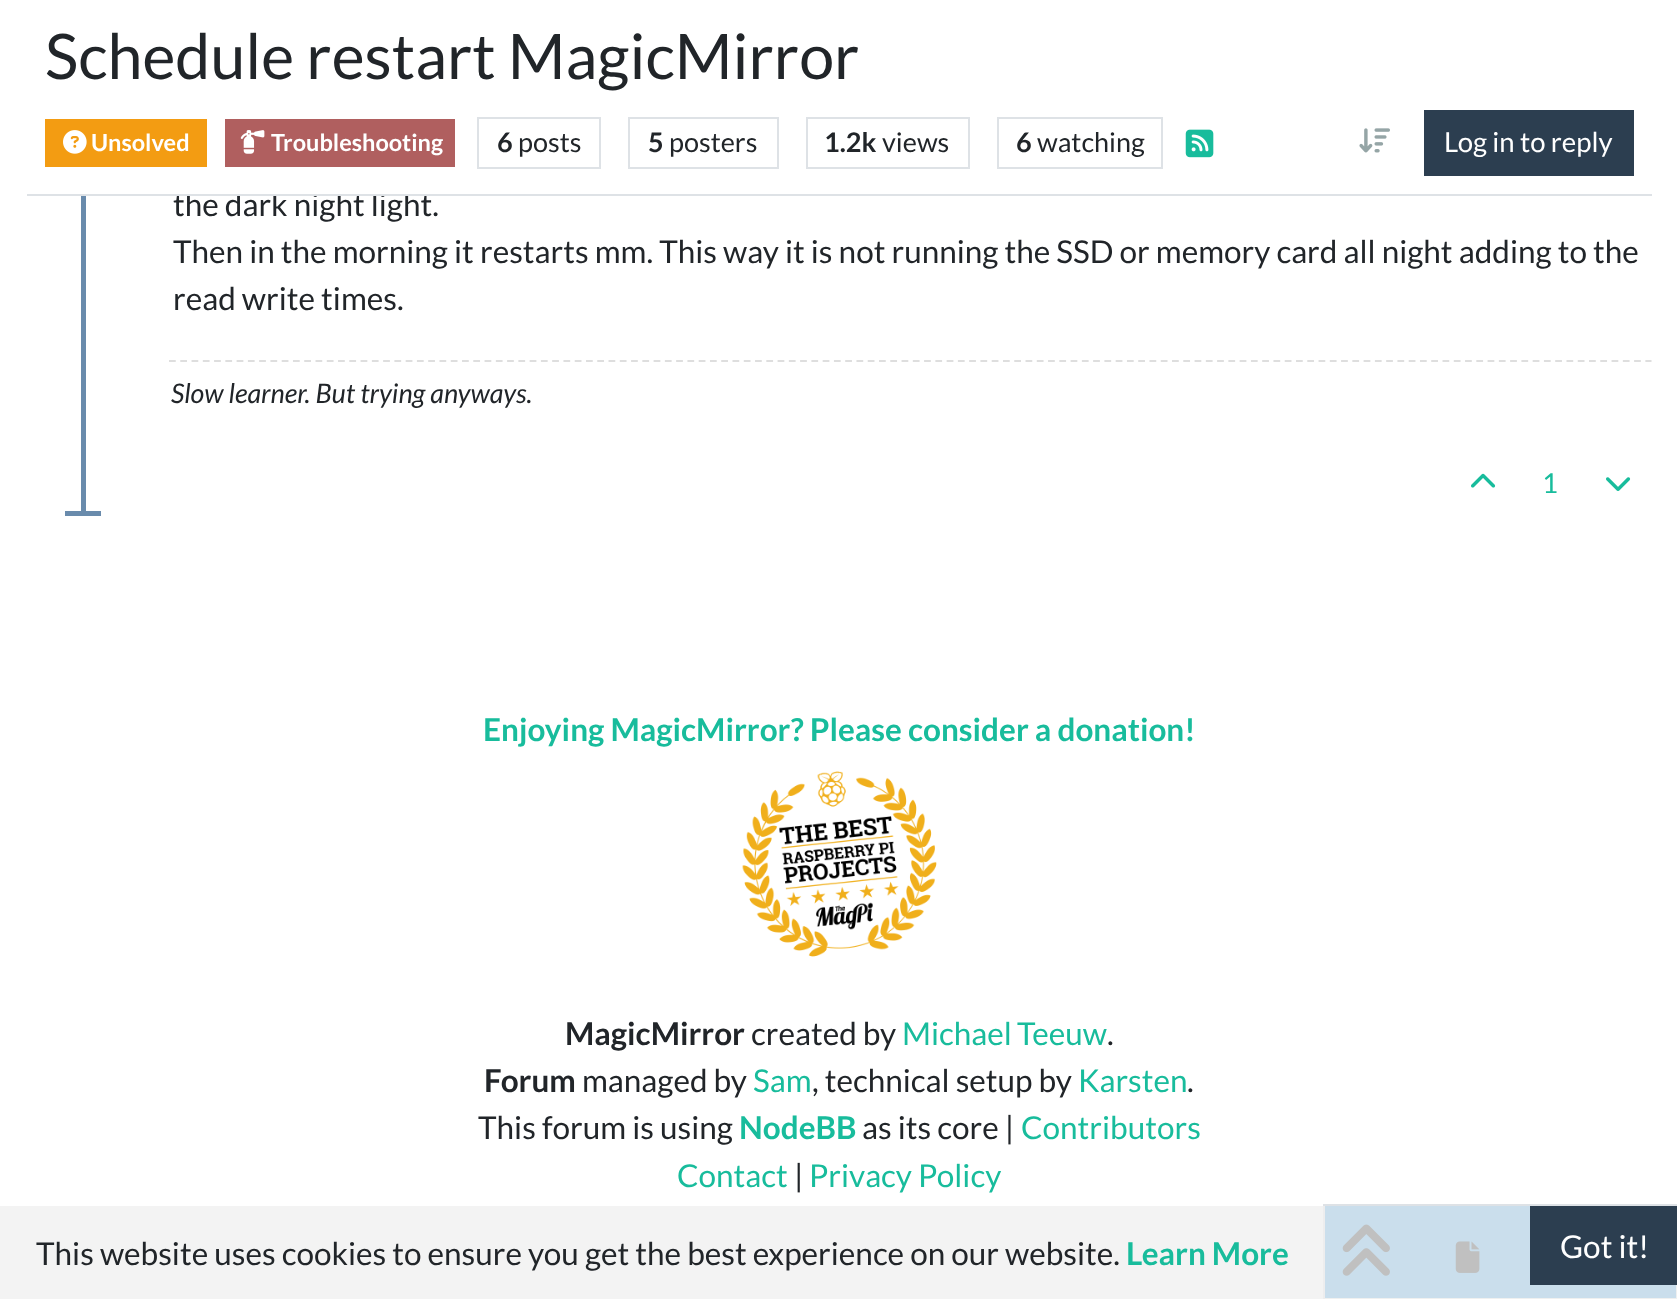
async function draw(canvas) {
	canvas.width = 1677;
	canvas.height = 1299;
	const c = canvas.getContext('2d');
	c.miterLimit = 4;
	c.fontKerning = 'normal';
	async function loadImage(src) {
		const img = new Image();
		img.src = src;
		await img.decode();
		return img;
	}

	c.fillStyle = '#fff';
	c.fillRect(0, 0, 1677, 1299);
	c.font = '31.5px Lato';
	c.fillStyle = '#212529';
	c.fillText('the dark night light.', 173, 216);
	c.fillStyle = '#fff';
	c.fillRect(187, 192, 222, 2);
	c.fillStyle = '#dee2e6';
	c.fillRect(27, 194, 1625, 2);
	c.font = '62.75px Lato';
	c.fillStyle = '#212529';
	c.fillText('Schedule restart MagicMirror', 45, 79);
	c.fillStyle = '#f39c12';
	c.fillRect(45, 119, 162, 48);
	c.drawImage(await loadImage('img1.png'), 63, 130, 24, 24);
	c.font = 'bold 23.5px Lato';
	c.fillStyle = '#fff';
	c.fillText('Unsolved', 91, 151);
	c.fillStyle = '#b05f5f';
	c.fillRect(225, 119, 230, 48);
	c.drawImage(await loadImage('img2.png'), 240, 130, 25, 24);
	c.fillStyle = '#fff';
	c.fillText('Troubleshooting', 271, 151);
	c.strokeStyle = '#dee2e6';
	c.lineWidth = 2;
	c.strokeRect(478, 118, 122, 50);
	c.font = 'bold 27px Lato';
	c.fillStyle = '#212529';
	c.fillText('6', 497, 152);
	c.font = '27px Lato';
	c.fillText('posts', 518, 152);
	c.strokeRect(629, 118, 149, 50);
	c.font = 'bold 27px Lato';
	c.fillText('5', 648, 152);
	c.font = '27px Lato';
	c.fillText('posters', 669, 152);
	c.strokeRect(807, 118, 162, 50);
	c.font = 'bold 27px Lato';
	c.fillText('1.2k', 824, 152);
	c.font = '27px Lato';
	c.fillText('views', 882, 152);
	c.strokeRect(998, 118, 164, 50);
	c.font = 'bold 27px Lato';
	c.fillText('6', 1016, 152);
	c.font = '27px Lato';
	c.fillText('watching', 1037, 152);
	c.drawImage(await loadImage('img3.png'), 1185, 129, 29, 29);
	c.drawImage(await loadImage('img4.png'), 1359, 128, 31, 25);
	c.fillStyle = '#2c3e50';
	c.fillRect(1424, 110, 210, 66);
	c.font = '27.5px Lato';
	c.fillStyle = '#fff';
	c.fillText('Log in to reply', 1444, 152);
	c.fillStyle = '#698bac';
	c.fillRect(81, 196, 5, 319);
	c.font = '31.5px Lato';
	c.fillStyle = '#212529';
	c.fillText('Then in the morning it restarts mm. This way it is not running the SSD or memory card all night adding to the', 173, 263);
	c.fillText('read write times.', 173, 310);
	c.beginPath();
	c.moveTo(169, 361);
	c.lineTo(1651.5, 361);
	c.strokeStyle = '#dedede';
	c.lineWidth = 2.2;
	c.setLineDash([6.75, 4.52]);
	c.stroke();
	c.font = 'italic 27px Lato';
	c.fillText('Slow learner. But trying anyways.', 171, 403);
	c.drawImage(await loadImage('img5.png'), 1471, 473, 25, 15);
	c.font = '27.5px Lato';
	c.fillStyle = '#18bc9c';
	c.fillText('1', 1542, 493);
	c.drawImage(await loadImage('img6.png'), 1606, 477, 25, 14);
	c.fillStyle = '#698bac';
	c.fillRect(65, 511, 36, 5);
	c.fillStyle = '#ecf0f1';
	c.fillRect(1325, 1285, 352, 14);
	c.strokeStyle = '#dee2e6';
	c.lineWidth = 2;
	c.setLineDash([]);
	c.strokeRect(1324, 1205, 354, 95);
	c.fillStyle = '#3498db';
	c.fillRect(1325, 1206, 351, 92);
	c.drawImage(await loadImage('img7.png'), 1342, 1224, 48, 52);
	c.drawImage(await loadImage('img8.png'), 1455, 1241, 25, 32);
	c.font = 'bold 31.5px Lato';
	c.fillStyle = '#18bc9c';
	c.fillText('Enjoying MagicMirror? Please consider a donation!', 483, 741);
	c.drawImage(await loadImage('img9.png'), 742, 771, 195, 186);
	c.fillStyle = '#212529';
	c.fillText('MagicMirror', 565, 1045);
	c.font = '31.5px Lato';
	c.fillText('created by', 751, 1045);
	c.wordSpacing = '-1px';
	c.fillStyle = '#18bc9c';
	c.fillText('Michael Teeuw', 902, 1045);
	c.wordSpacing = '0px';
	c.fillStyle = '#212529';
	c.fillText('.', 1107, 1045);
	c.font = 'bold 31.5px Lato';
	c.fillText('Forum', 484, 1092);
	c.font = '31.5px Lato';
	c.fillText('managed by', 582, 1092);
	c.fillStyle = '#18bc9c';
	c.fillText('Sam', 753, 1092);
	c.fillStyle = '#212529';
	c.fillText(', technical setup by', 812, 1092);
	c.fillStyle = '#18bc9c';
	c.fillText('Karsten', 1078, 1092);
	c.fillStyle = '#212529';
	c.fillText('.', 1187, 1092);
	c.fillText('This forum is using', 478, 1139);
	c.font = 'bold 31.5px Lato';
	c.fillStyle = '#18bc9c';
	c.fillText('NodeBB', 739, 1139);
	c.font = '31.5px Lato';
	c.fillStyle = '#212529';
	c.fillText('as its core |', 862, 1139);
	c.fillStyle = '#18bc9c';
	c.fillText('Contributors', 1021, 1139);
	c.fillText('Contact', 677, 1187);
	c.fillStyle = '#212529';
	c.fillText('|', 794, 1187);
	c.fillStyle = '#18bc9c';
	c.fillText('Privacy Policy', 809, 1187);
	c.fillStyle = '#f0f0f0cc';
	c.fillRect(0, 1206, 1677, 93);
	c.fillStyle = '#212529';
	c.fillText('This website uses cookies to ensure you get the best experience on our website.', 36, 1265);
	c.font = 'bold 31.5px Lato';
	c.fillStyle = '#18bc9c';
	c.fillText('Learn More', 1126, 1265);
	c.fillStyle = '#2c3e50';
	c.fillRect(1530, 1206, 147, 79);
	c.font = '31.5px Lato';
	c.fillStyle = '#fff';
	c.fillText('Got it!', 1560, 1258);
}

draw(document.querySelector('canvas'));
